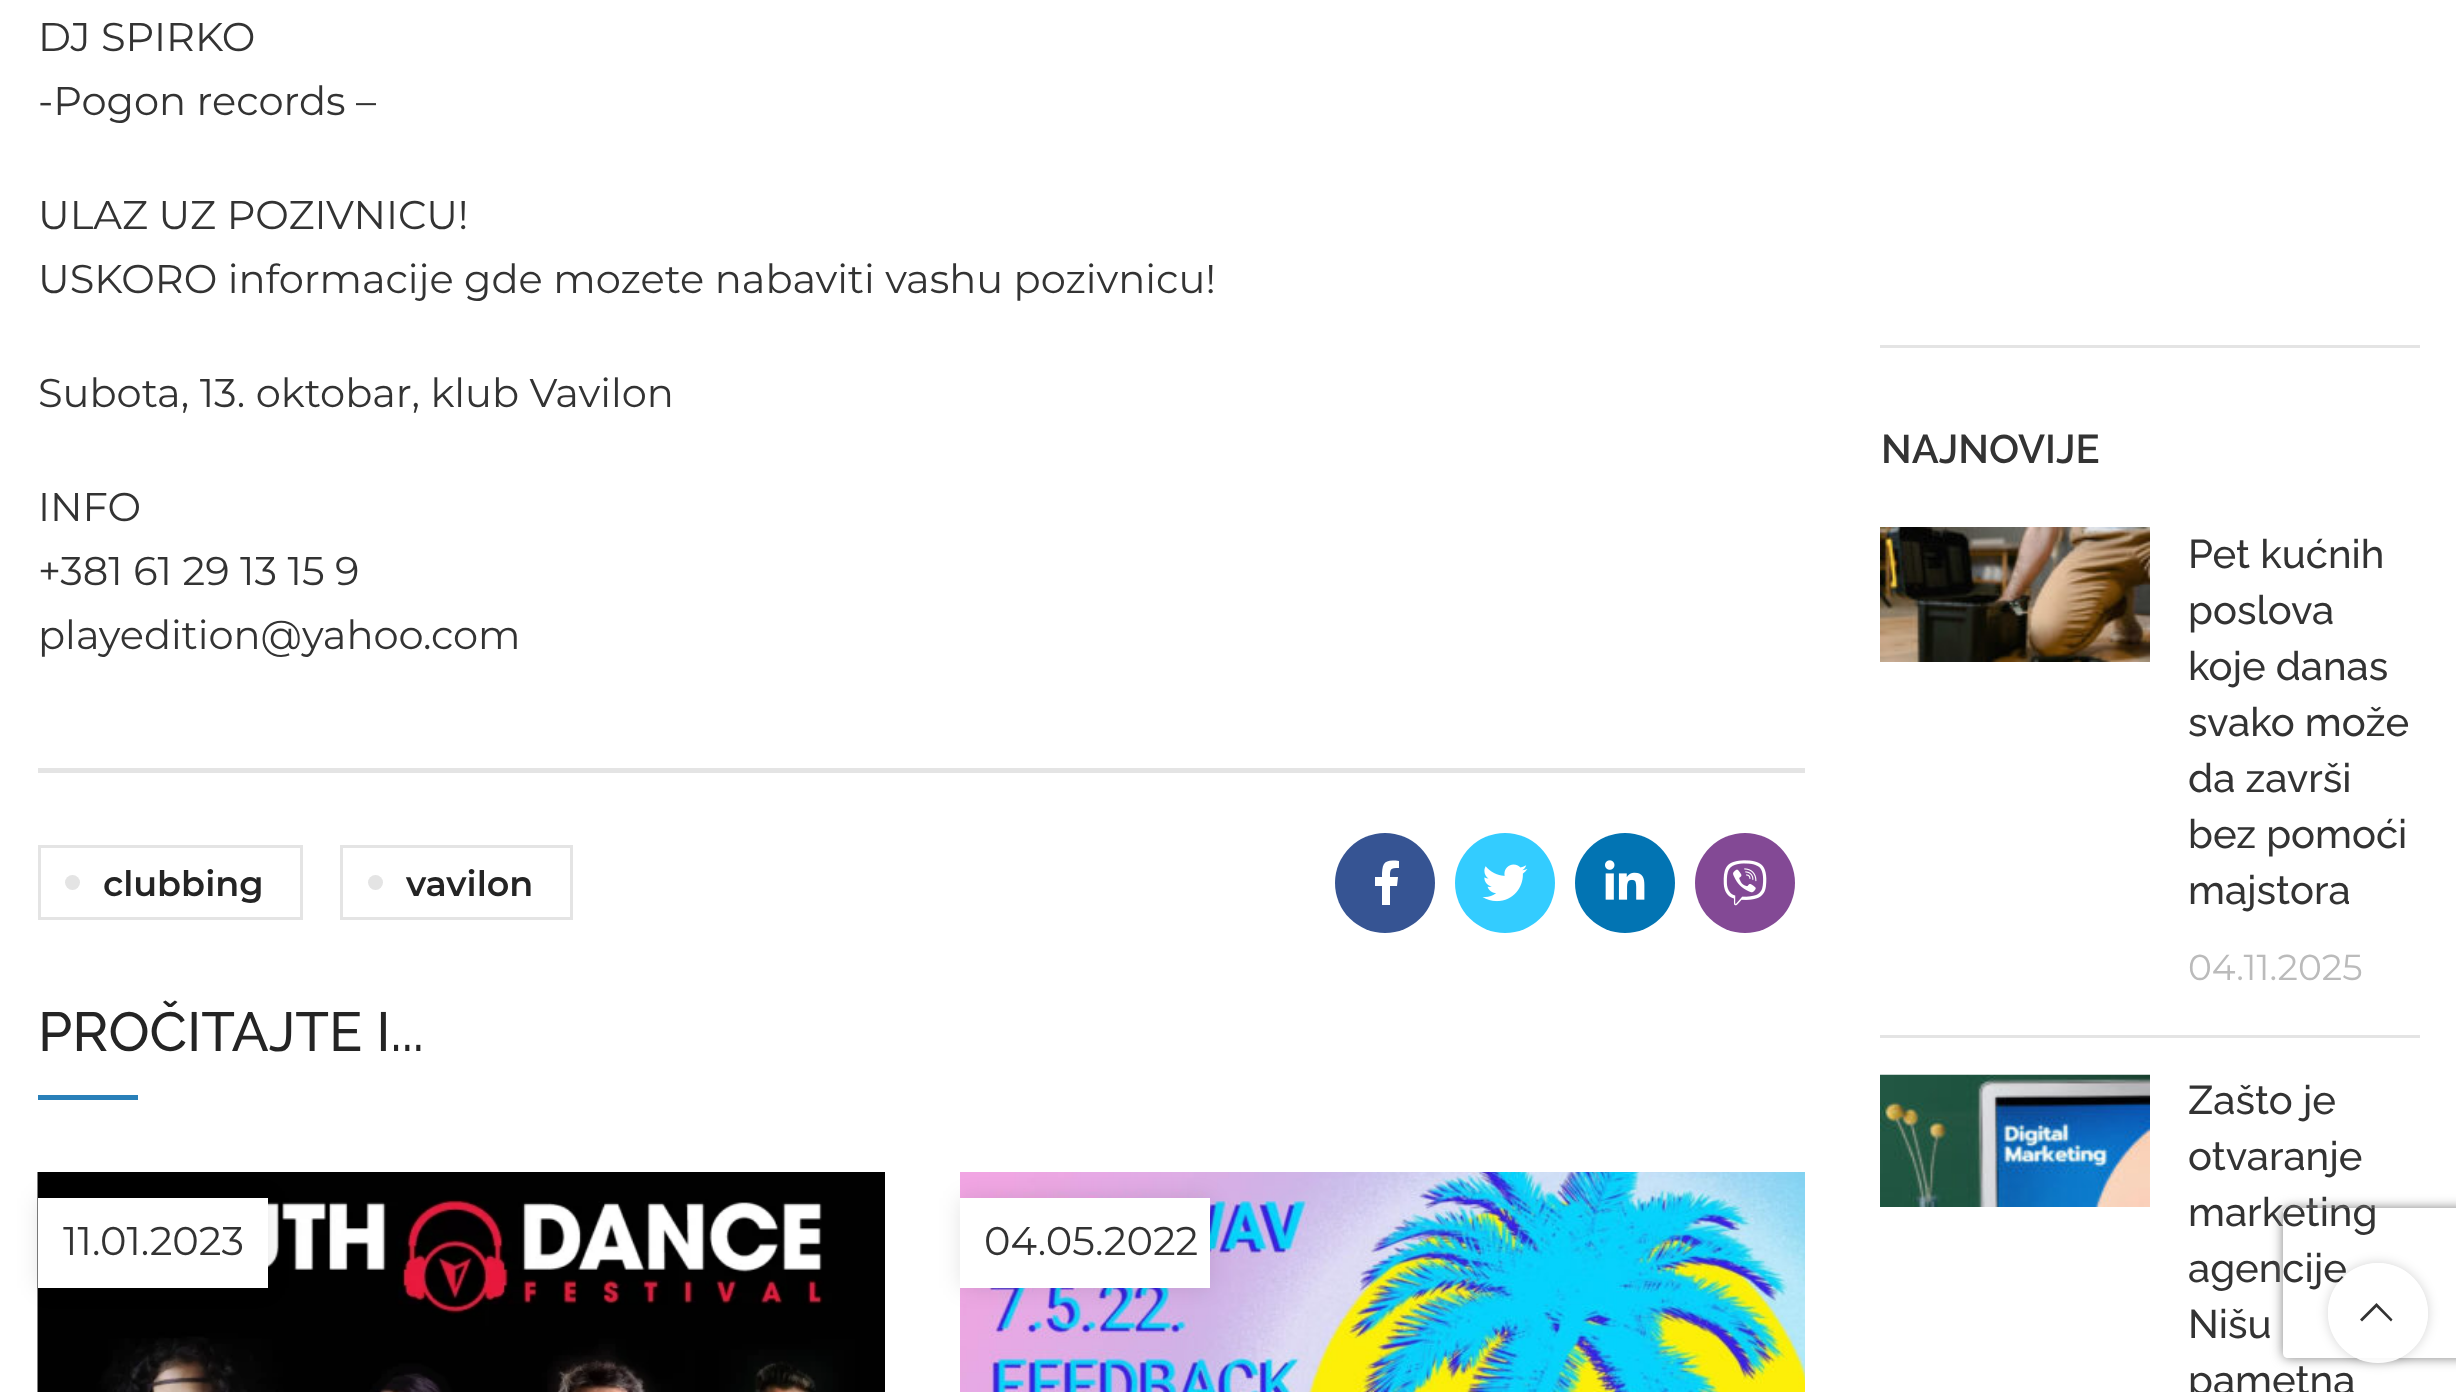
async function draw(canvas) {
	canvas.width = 2456;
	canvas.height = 1392;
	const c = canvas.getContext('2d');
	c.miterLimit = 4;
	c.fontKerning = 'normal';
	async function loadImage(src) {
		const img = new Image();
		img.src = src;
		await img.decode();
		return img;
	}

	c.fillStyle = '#fff';
	c.fillRect(0, 0, 2456, 1392);
	c.font = '40px Montserrat';
	c.fillStyle = '#333';
	for (const [text, x, y] of [
		['DJ SPIRKO', 38, 51],
		['-Pogon records –', 38, 115],
		['ULAZ UZ POZIVNICU!', 38, 229],
		['USKORO informacije gde mozete nabaviti vashu pozivnicu!', 38, 293],
		['Subota, 13. oktobar, klub Vavilon', 38, 407],
		['INFO', 38, 521],
		['+381 61 29 13 15 9', 38, 585],
		['playedition@yahoo.com', 38, 649],
	]) {
		c.fillText(text, x, y);
	}
	c.fillStyle = '#e4e4e4';
	c.fillRect(38, 768, 1767, 5);
	c.strokeStyle = '#e4e4e4';
	c.lineWidth = 3;
	c.strokeRect(39.5, 846.5, 262, 72);
	c.beginPath();
	c.arc(72.5, 882.5, 7.5, 0, 2 * Math.PI);
	c.fill();
	c.font = '600 35px Montserrat';
	c.fillStyle = '#242424';
	c.fillText('clubbing', 103, 896);
	c.strokeRect(341.5, 846.5, 230, 72);
	c.fillStyle = '#e4e4e4';
	c.beginPath();
	c.arc(375.5, 882.5, 7.5, 0, 2 * Math.PI);
	c.fill();
	c.fillStyle = '#242424';
	c.fillText('vavilon', 406, 896);
	c.fillStyle = '#365493';
	c.beginPath();
	c.arc(1385, 883, 50, 0, 2 * Math.PI);
	c.fill();
	c.fillStyle = '#fff';
	c.beginPath();
	c.moveTo(1397, 886);
	c.lineTo(1398, 877);
	c.lineTo(1390, 877);
	c.bezierCurveTo(1390, 869, 1390, 868, 1399, 868);
	c.lineTo(1399, 861);
	c.bezierCurveTo(1384, 859, 1382, 863, 1382, 877);
	c.lineTo(1375, 877);
	c.lineTo(1375, 886);
	c.lineTo(1382, 886);
	c.lineTo(1382, 905);
	c.lineTo(1390, 905);
	c.lineTo(1390, 886);
	c.closePath();
	c.fill();
	c.fillStyle = '#3cf';
	c.beginPath();
	c.arc(1505, 883, 50, 0, 2 * Math.PI);
	c.fill();
	c.drawImage(await loadImage('img1.png'), 1482, 864, 46, 38);
	c.fillStyle = '#0274b3';
	c.beginPath();
	c.arc(1625, 883, 50, 0, 2 * Math.PI);
	c.fill();
	c.drawImage(await loadImage('img2.png'), 1605, 860, 40, 40);
	c.fillStyle = '#834995';
	c.beginPath();
	c.arc(1745, 883, 50, 0, 2 * Math.PI);
	c.fill();
	c.drawImage(await loadImage('img3.png'), 1723, 860, 44, 46);
	c.font = '500 55px Raleway';
	c.fillStyle = '#242424';
	c.fillText('PROČITAJTE I...', 38, 1051);
	c.fillStyle = '#2980b9';
	c.fillRect(38, 1095, 100, 5);
	c.drawImage(await loadImage('img4.png'), 37, 1172, 848, 220);
	c.fillStyle = '#0000001a';
	c.filter = 'blur(11px)';
	c.beginPath();
	c.rect(38, 1198, 230, 90);
	c.fill();
	c.filter = 'none';
	c.fillStyle = '#fff';
	c.fillRect(38, 1198, 230, 90);
	c.font = '40px Montserrat';
	c.fillStyle = '#333';
	c.fillText('11.01.2023', 63, 1255);
	c.drawImage(await loadImage('img5.png'), 960, 1172, 845, 220);
	c.fillStyle = '#0000001a';
	c.filter = 'blur(11px)';
	c.beginPath();
	c.rect(960, 1198, 250, 90);
	c.fill();
	c.filter = 'none';
	c.fillStyle = '#fff';
	c.fillRect(960, 1198, 250, 90);
	c.fillStyle = '#333';
	c.fillText('04.05.2022', 984, 1255);
	c.fillStyle = '#e4e4e4';
	c.fillRect(1880, 345, 540, 3);
	c.font = '600 40px Raleway';
	c.fillStyle = '#333';
	c.fillText('NAJNOVIJE', 1881, 463);
	c.fillStyle = '#e4e4e4';
	c.fillRect(1880, 1035, 540, 3);
	c.drawImage(await loadImage('img6.png'), 1880, 527, 270, 135);
	c.font = '500 40px Raleway';
	c.fillStyle = '#333';
	for (const [text, x, y] of [
		['Pet kućnih', 2188, 568],
		['poslova', 2188, 624],
		['koje danas', 2188, 680],
		['svako može', 2188, 736],
		['da završi', 2188, 792],
		['bez pomoći', 2188, 848],
		['majstora', 2188, 904],
	]) {
		c.fillText(text, x, y);
	}
	c.font = '36px Montserrat';
	c.fillStyle = '#bbb';
	c.fillText('04.11.2025', 2188, 980);
	c.drawImage(await loadImage('img7.png'), 1880, 1074, 270, 133);
	c.font = '500 40px Raleway';
	c.fillStyle = '#333';
	for (const [text, x, y] of [
		['Zašto je', 2188, 1114],
		['otvaranje', 2188, 1170],
		['marketing', 2188, 1226],
		['agencije', 2188, 1282],
		['Nišu', 2188, 1338],
		['pametna', 2188, 1394],
	]) {
		c.fillText(text, x, y);
	}
	c.save();
	c.beginPath();
	c.moveTo(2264, 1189);
	c.lineTo(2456, 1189);
	c.lineTo(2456, 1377);
	c.lineTo(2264, 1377);
	c.closePath();
	c.moveTo(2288, 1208);
	c.lineTo(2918, 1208);
	c.bezierCurveTo(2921, 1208, 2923, 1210, 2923, 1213);
	c.lineTo(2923, 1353);
	c.bezierCurveTo(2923, 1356, 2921, 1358, 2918, 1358);
	c.lineTo(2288, 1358);
	c.bezierCurveTo(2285, 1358, 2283, 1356, 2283, 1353);
	c.lineTo(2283, 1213);
	c.bezierCurveTo(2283, 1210, 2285, 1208, 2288, 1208);
	c.closePath();
	c.clip('evenodd');
	c.fillStyle = '#808080';
	c.filter = 'blur(6px)';
	c.beginPath();
	c.roundRect(2283, 1208, 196, 150, 5);
	c.fill();
	c.filter = 'none';
	c.restore();
	c.save();
	c.beginPath();
	c.moveTo(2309, 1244);
	c.lineTo(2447, 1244);
	c.lineTo(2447, 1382);
	c.lineTo(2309, 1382);
	c.closePath();
	c.moveTo(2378, 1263);
	c.bezierCurveTo(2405.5, 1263, 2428, 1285.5, 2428, 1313);
	c.bezierCurveTo(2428, 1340.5, 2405.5, 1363, 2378, 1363);
	c.bezierCurveTo(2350.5, 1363, 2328, 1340.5, 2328, 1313);
	c.bezierCurveTo(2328, 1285.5, 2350.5, 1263, 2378, 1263);
	c.closePath();
	c.clip('evenodd');
	c.fillStyle = '#0000002b';
	c.filter = 'blur(6px)';
	c.beginPath();
	c.roundRect(2328, 1263, 100, 100, 50);
	c.fill();
	c.filter = 'none';
	c.restore();
	c.fillStyle = '#ffffffe6';
	c.beginPath();
	c.arc(2378, 1313, 50, 0, 2 * Math.PI);
	c.fill();
	c.fillStyle = '#333';
	c.beginPath();
	c.moveTo(2391, 1321.5);
	c.lineTo(2392.5, 1319.5);
	c.lineTo(2376.5, 1303);
	c.lineTo(2360, 1319.5);
	c.lineTo(2362, 1321.5);
	c.lineTo(2376.5, 1307);
	c.closePath();
	c.fill();
}

draw(document.querySelector('canvas'));
